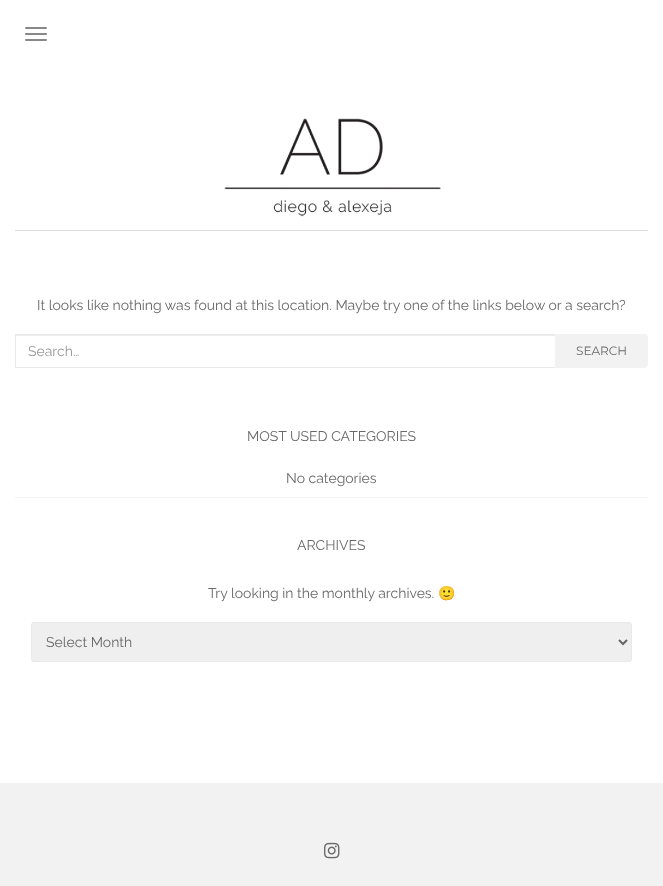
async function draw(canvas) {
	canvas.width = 663;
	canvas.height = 886;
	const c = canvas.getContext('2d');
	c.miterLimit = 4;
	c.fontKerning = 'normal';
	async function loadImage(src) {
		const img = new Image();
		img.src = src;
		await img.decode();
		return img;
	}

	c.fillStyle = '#fff';
	c.fillRect(0, 0, 663, 886);
	c.fillStyle = '#888';
	c.beginPath();
	c.roundRect(25, 27, 22, 2, 1);
	c.fill();
	c.beginPath();
	c.roundRect(25, 33, 22, 2, 1);
	c.fill();
	c.beginPath();
	c.roundRect(25, 39, 22, 2, 1);
	c.fill();
	c.drawImage(await loadImage('img1.png'), 224, 118, 217, 99);
	c.fillStyle = '#ddd';
	c.fillRect(15, 230, 633, 1);
	c.font = '14px Raleway';
	c.fillStyle = '#696969';
	c.fillText('It looks like nothing was found at this location. Maybe try one of the links below or a search?', 37, 310);
	c.fillStyle = '#ececec';
	c.fillRect(16, 335, 539, 1);
	c.strokeStyle = '#e8e8e8';
	c.strokeRect(15.5, 334.5, 540, 33);
	c.fillStyle = '#999';
	c.fillText('Search…', 28, 356);
	c.fillStyle = '#f2f2f2';
	c.beginPath();
	c.roundRect(555, 334, 93, 34, [0, 4, 4, 0]);
	c.fill();
	c.font = '12px Montserrat';
	c.fillStyle = '#696969';
	c.fillText('SEARCH', 576, 355);
	c.font = '14px Raleway';
	c.fillText('MOST USED CATEGORIES', 247, 441);
	c.fillStyle = '#f2f2f2';
	c.fillRect(15, 497, 633, 1);
	c.fillStyle = '#696969';
	for (const [text, x, y] of [
		['No categories', 286, 483],
		['ARCHIVES', 297, 550],
		['Try looking in the monthly archives.', 208, 598],
	]) {
		c.fillText(text, x, y);
	}
	c.font = '14px Noto Color Emoji';
	c.fillText('🙂', 438, 598);
	c.fillStyle = '#efefef';
	c.beginPath();
	c.roundRect(31.5, 622.5, 600, 39, 2.5);
	c.fill();
	c.stroke();
	c.beginPath();
	c.moveTo(619, 640);
	c.lineTo(623, 644);
	c.lineTo(627, 640);
	c.strokeStyle = '#666';
	c.lineWidth = 2;
	c.stroke();
	c.font = '14px Raleway';
	c.fillStyle = '#696969';
	c.fillText('Select Month', 46, 647);
	c.fillStyle = '#f2f2f2';
	c.fillRect(0, 783, 663, 103);
	c.drawImage(await loadImage('img2.png'), 324, 842, 16, 17);
}

draw(document.querySelector('canvas'));
